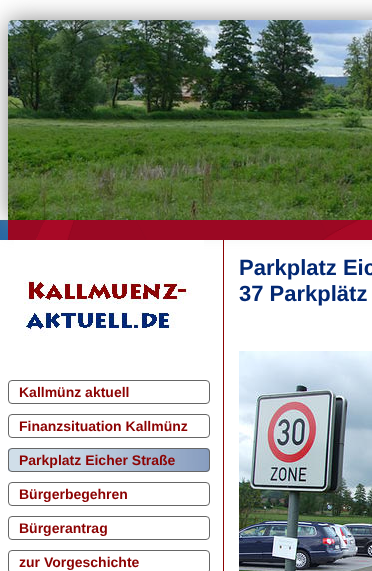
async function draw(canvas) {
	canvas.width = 372;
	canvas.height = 571;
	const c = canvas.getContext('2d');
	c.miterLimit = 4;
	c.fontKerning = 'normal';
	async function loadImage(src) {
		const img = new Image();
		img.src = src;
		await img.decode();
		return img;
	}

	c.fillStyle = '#fff';
	c.fillRect(0, 0, 372, 571);
	c.drawImage(await loadImage('img1.png'), 0, 219, 8, 21);
	c.fillStyle = '#888';
	c.filter = 'blur(12.5px)';
	c.beginPath();
	c.roundRect(8, 20, 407, 200, 5);
	c.fill();
	c.filter = 'none';
	c.drawImage(await loadImage('img2.png'), 8, 20, 364, 200);
	c.drawImage(await loadImage('img3.png'), 8, 220, 364, 20);
	c.fillStyle = '#8c0303';
	c.fillRect(223, 240, 1, 331);
	c.font = 'bold 22px Liberation Sans';
	c.fillStyle = '#022873';
	c.fillText('Parkplatz Eic', 239, 275);
	c.fillText('37 Parkplätz', 239, 301);
	c.drawImage(await loadImage('img4.png'), 239, 351, 133, 220);
	c.drawImage(await loadImage('img5.png'), 14, 240, 190, 96);
	c.beginPath();
	c.roundRect(8.5, 380.5, 201, 23, 3.5);
	c.strokeStyle = '#666';
	c.stroke();
	c.font = 'bold 14px Liberation Sans';
	c.fillStyle = '#8c0303';
	c.fillText('Kallmünz aktuell', 19, 397);
	c.beginPath();
	c.roundRect(8.5, 414.5, 201, 23, 3.5);
	c.stroke();
	c.fillText('Finanzsituation Kallmünz', 19, 431);
	c.drawImage(await loadImage('img6.png'), 8, 448, 202, 24);
	c.beginPath();
	c.roundRect(8.5, 448.5, 201, 23, 3.5);
	c.stroke();
	c.fillText('Parkplatz Eicher Straße', 19, 465);
	c.beginPath();
	c.roundRect(8.5, 482.5, 201, 23, 3.5);
	c.stroke();
	c.fillText('Bürgerbegehren', 19, 499);
	c.beginPath();
	c.roundRect(8.5, 516.5, 201, 23, 3.5);
	c.stroke();
	c.fillText('Bürgerantrag', 19, 533);
	c.beginPath();
	c.roundRect(8.5, 550.5, 201, 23, 3.5);
	c.stroke();
	c.fillText('zur Vorgeschichte', 19, 567);
}

draw(document.querySelector('canvas'));
